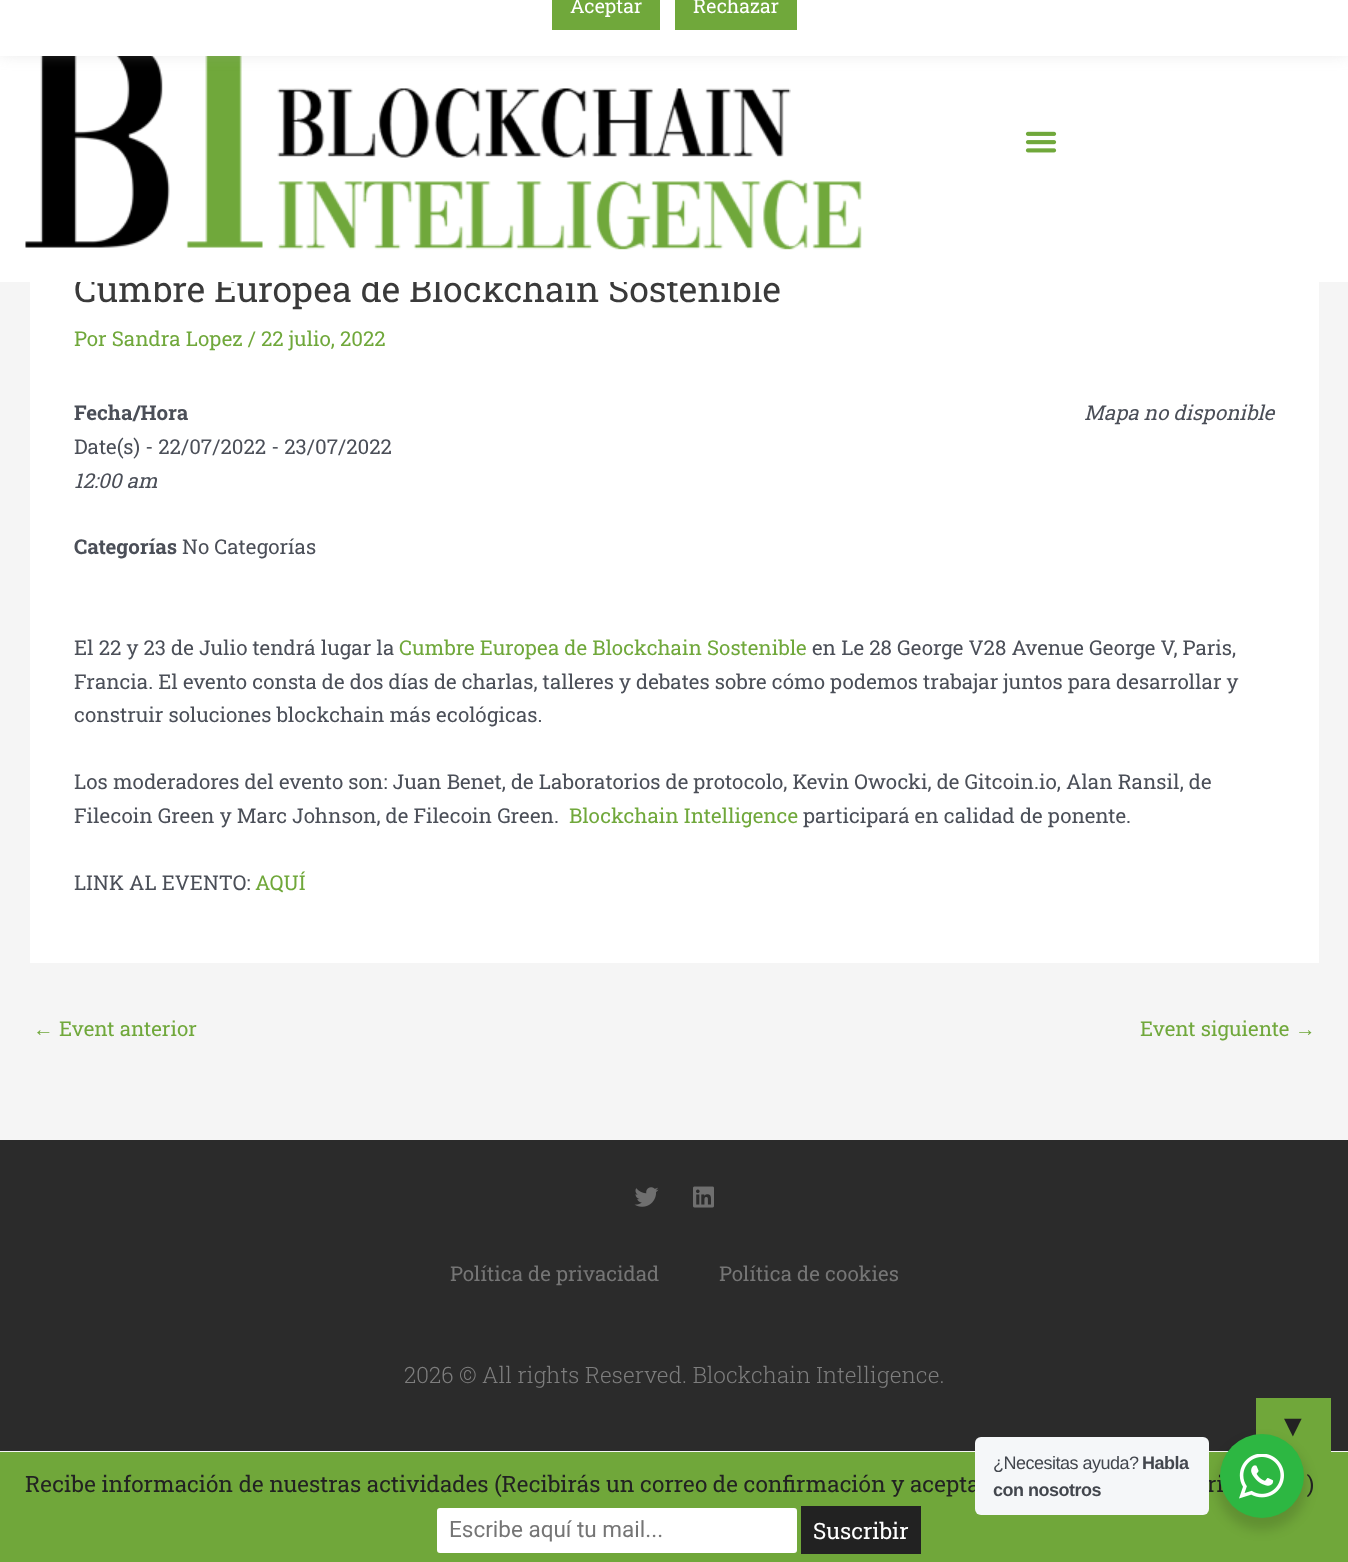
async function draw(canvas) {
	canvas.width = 1348;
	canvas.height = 1562;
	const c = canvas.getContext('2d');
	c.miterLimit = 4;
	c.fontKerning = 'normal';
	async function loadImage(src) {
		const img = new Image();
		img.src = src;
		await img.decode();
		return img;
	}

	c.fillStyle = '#f5f5f5';
	c.fillRect(0, 0, 1348, 1562);
	c.fillStyle = '#fff';
	c.fillRect(30, 282, 1289, 681);
	c.font = '35.6px Roboto Slab';
	c.fillStyle = '#3a3a3a';
	c.fillText('Cumbre Europea de Blockchain Sostenible', 74, 302);
	c.fillStyle = '#fff';
	c.fillRect(0, 56, 1348, 226);
	c.drawImage(await loadImage('img1.png'), 25, 56, 837, 194);
	c.fillStyle = '#acabab4d';
	c.filter = 'blur(7.5px)';
	c.beginPath();
	c.rect(0, -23, 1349, 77);
	c.fill();
	c.filter = 'none';
	c.fillStyle = '#fff';
	c.fillRect(0, 0, 1348, 56);
	c.fillStyle = '#70a83b';
	c.fillRect(552, 0, 108, 30);
	c.font = '19.5px Roboto Slab';
	c.fillStyle = '#fff';
	c.fillText('Aceptar', 570, 13);
	c.fillStyle = '#70a83b';
	c.fillRect(675, 0, 122, 30);
	c.fillStyle = '#fff';
	c.fillText('Rechazar', 693, 13);
	c.drawImage(await loadImage('img2.png'), 1025, 131, 32, 22);
	c.font = '20.52px Roboto Slab';
	c.fillStyle = '#70a83b';
	c.fillText('Por Sandra Lopez / 22 julio, 2022', 74, 346);
	c.font = 'bold 20.52px Roboto Slab';
	c.fillStyle = '#4b4f58';
	c.fillText('Fecha/Hora', 74, 420);
	c.font = '20.52px Roboto Slab';
	c.fillText('Date(s) - 22/07/2022 - 23/07/2022', 74, 454);
	c.font = 'italic 20.52px Roboto Slab';
	c.fillText('12:00 am', 74, 488);
	c.fillText('Mapa no disponible', 1084, 420);
	c.font = 'bold 20.52px Roboto Slab';
	c.fillText('Categorías', 74, 554);
	c.font = '20.52px Roboto Slab';
	c.fillText('No Categorías', 182, 554);
	c.fillText('El 22 y 23 de Julio tendrá lugar la', 74, 655);
	c.fillStyle = '#70a83b';
	c.fillText('Cumbre Europea de Blockchain Sostenible', 399, 655);
	c.fillStyle = '#4b4f58';
	for (const [text, x, y] of [
		['en Le 28 George V28 Avenue George V, Paris,', 812, 655],
		['Francia. El evento consta de dos días de charlas, talleres y debates sobre cómo podemos trabajar juntos para desarrollar y', 74, 689],
		['construir soluciones blockchain más ecológicas.', 74, 722],
		['Los moderadores del evento son: Juan Benet, de Laboratorios de protocolo, Kevin Owocki, de Gitcoin.io, Alan Ransil, de', 74, 789],
		['Filecoin Green y Marc Johnson, de Filecoin Green.', 74, 823],
	]) {
		c.fillText(text, x, y);
	}
	c.fillStyle = '#70a83b';
	c.fillText('Blockchain Intelligence', 569, 823);
	c.fillStyle = '#4b4f58';
	c.fillText('participará en calidad de ponente.', 803, 823);
	c.fillText('LINK AL EVENTO:', 74, 890);
	c.fillStyle = '#70a83b';
	c.fillText('AQUÍ', 255, 890);
	c.font = '20.52px Liberation Sans';
	c.fillText('←', 33, 1036);
	c.font = '20.52px Roboto Slab';
	c.fillText('Event anterior', 59, 1036);
	c.fillText('Event siguiente', 1140, 1036);
	c.font = '20.52px Liberation Sans';
	c.fillText('→', 1295, 1036);
	c.fillStyle = '#2b2b2b';
	c.fillRect(0, 1140, 1348, 311);
	c.drawImage(await loadImage('img3.png'), 634, 1187, 25, 20);
	c.drawImage(await loadImage('img4.png'), 693, 1186, 21, 22);
	c.font = '20.52px Roboto Slab';
	c.fillStyle = '#757575';
	c.fillText('Política de privacidad', 450, 1281);
	c.fillText('Política de cookies', 719, 1281);
	c.font = '300 22.5px Roboto Slab';
	c.fillStyle = '#7e7e7e';
	c.fillText('2026 © All rights Reserved. Blockchain Intelligence.', 404, 1383);
	c.fillStyle = '#70a73a';
	c.fillRect(1256, 1398, 75, 54);
	c.font = '30px Liberation Sans';
	c.fillStyle = '#222';
	c.fillText('▼', 1278, 1436);
	c.fillStyle = '#70a73a';
	c.fillRect(0, 1452, 1348, 110);
	c.font = '22.5px Roboto Slab';
	c.fillStyle = '#222';
	for (const [text, x, y] of [
		['Recibe información de nuestras actividades (Recibirás un correo de confirmación y acepta', 25, 1492],
		['ri', 1207, 1492],
		[')', 1307, 1492],
	]) {
		c.fillText(text, x, y);
	}
	c.fillStyle = '#fff';
	c.beginPath();
	c.roundRect(438, 1509, 358, 43, 2);
	c.fill();
	c.strokeStyle = '#fff';
	c.lineWidth = 2;
	c.stroke();
	c.font = '22.5px Roboto';
	c.fillStyle = '#757575';
	c.fillText('Escribe aquí tu mail...', 449, 1537);
	c.fillStyle = '#222';
	c.fillRect(801, 1506, 120, 48);
	c.font = '22.5px Roboto Slab';
	c.fillStyle = '#fff';
	c.fillText('Suscribir', 813, 1539);
	c.fillStyle = '#00000024';
	c.filter = 'blur(6px)';
	c.beginPath();
	c.roundRect(1217, 1440, 90, 90, 45);
	c.fill();
	c.filter = 'none';
	c.fillStyle = '#f5f7f9';
	c.beginPath();
	c.roundRect(975, 1437, 234, 78, 6);
	c.fill();
	c.letterSpacing = '-0.5px';
	c.font = '18px Liberation Sans';
	c.fillStyle = '#43474e';
	c.fillText('¿Necesitas ayuda?', 993, 1469);
	c.font = 'bold 18px Liberation Sans';
	c.fillText('Habla', 1142, 1469);
	c.fillText('con nosotros', 993, 1496);
	c.fillStyle = '#2db742';
	c.beginPath();
	c.arc(1262, 1476, 42, 0, 2 * Math.PI);
	c.fill();
	c.drawImage(await loadImage('img5.png'), 1239, 1454, 45, 45);
}

draw(document.querySelector('canvas'));
